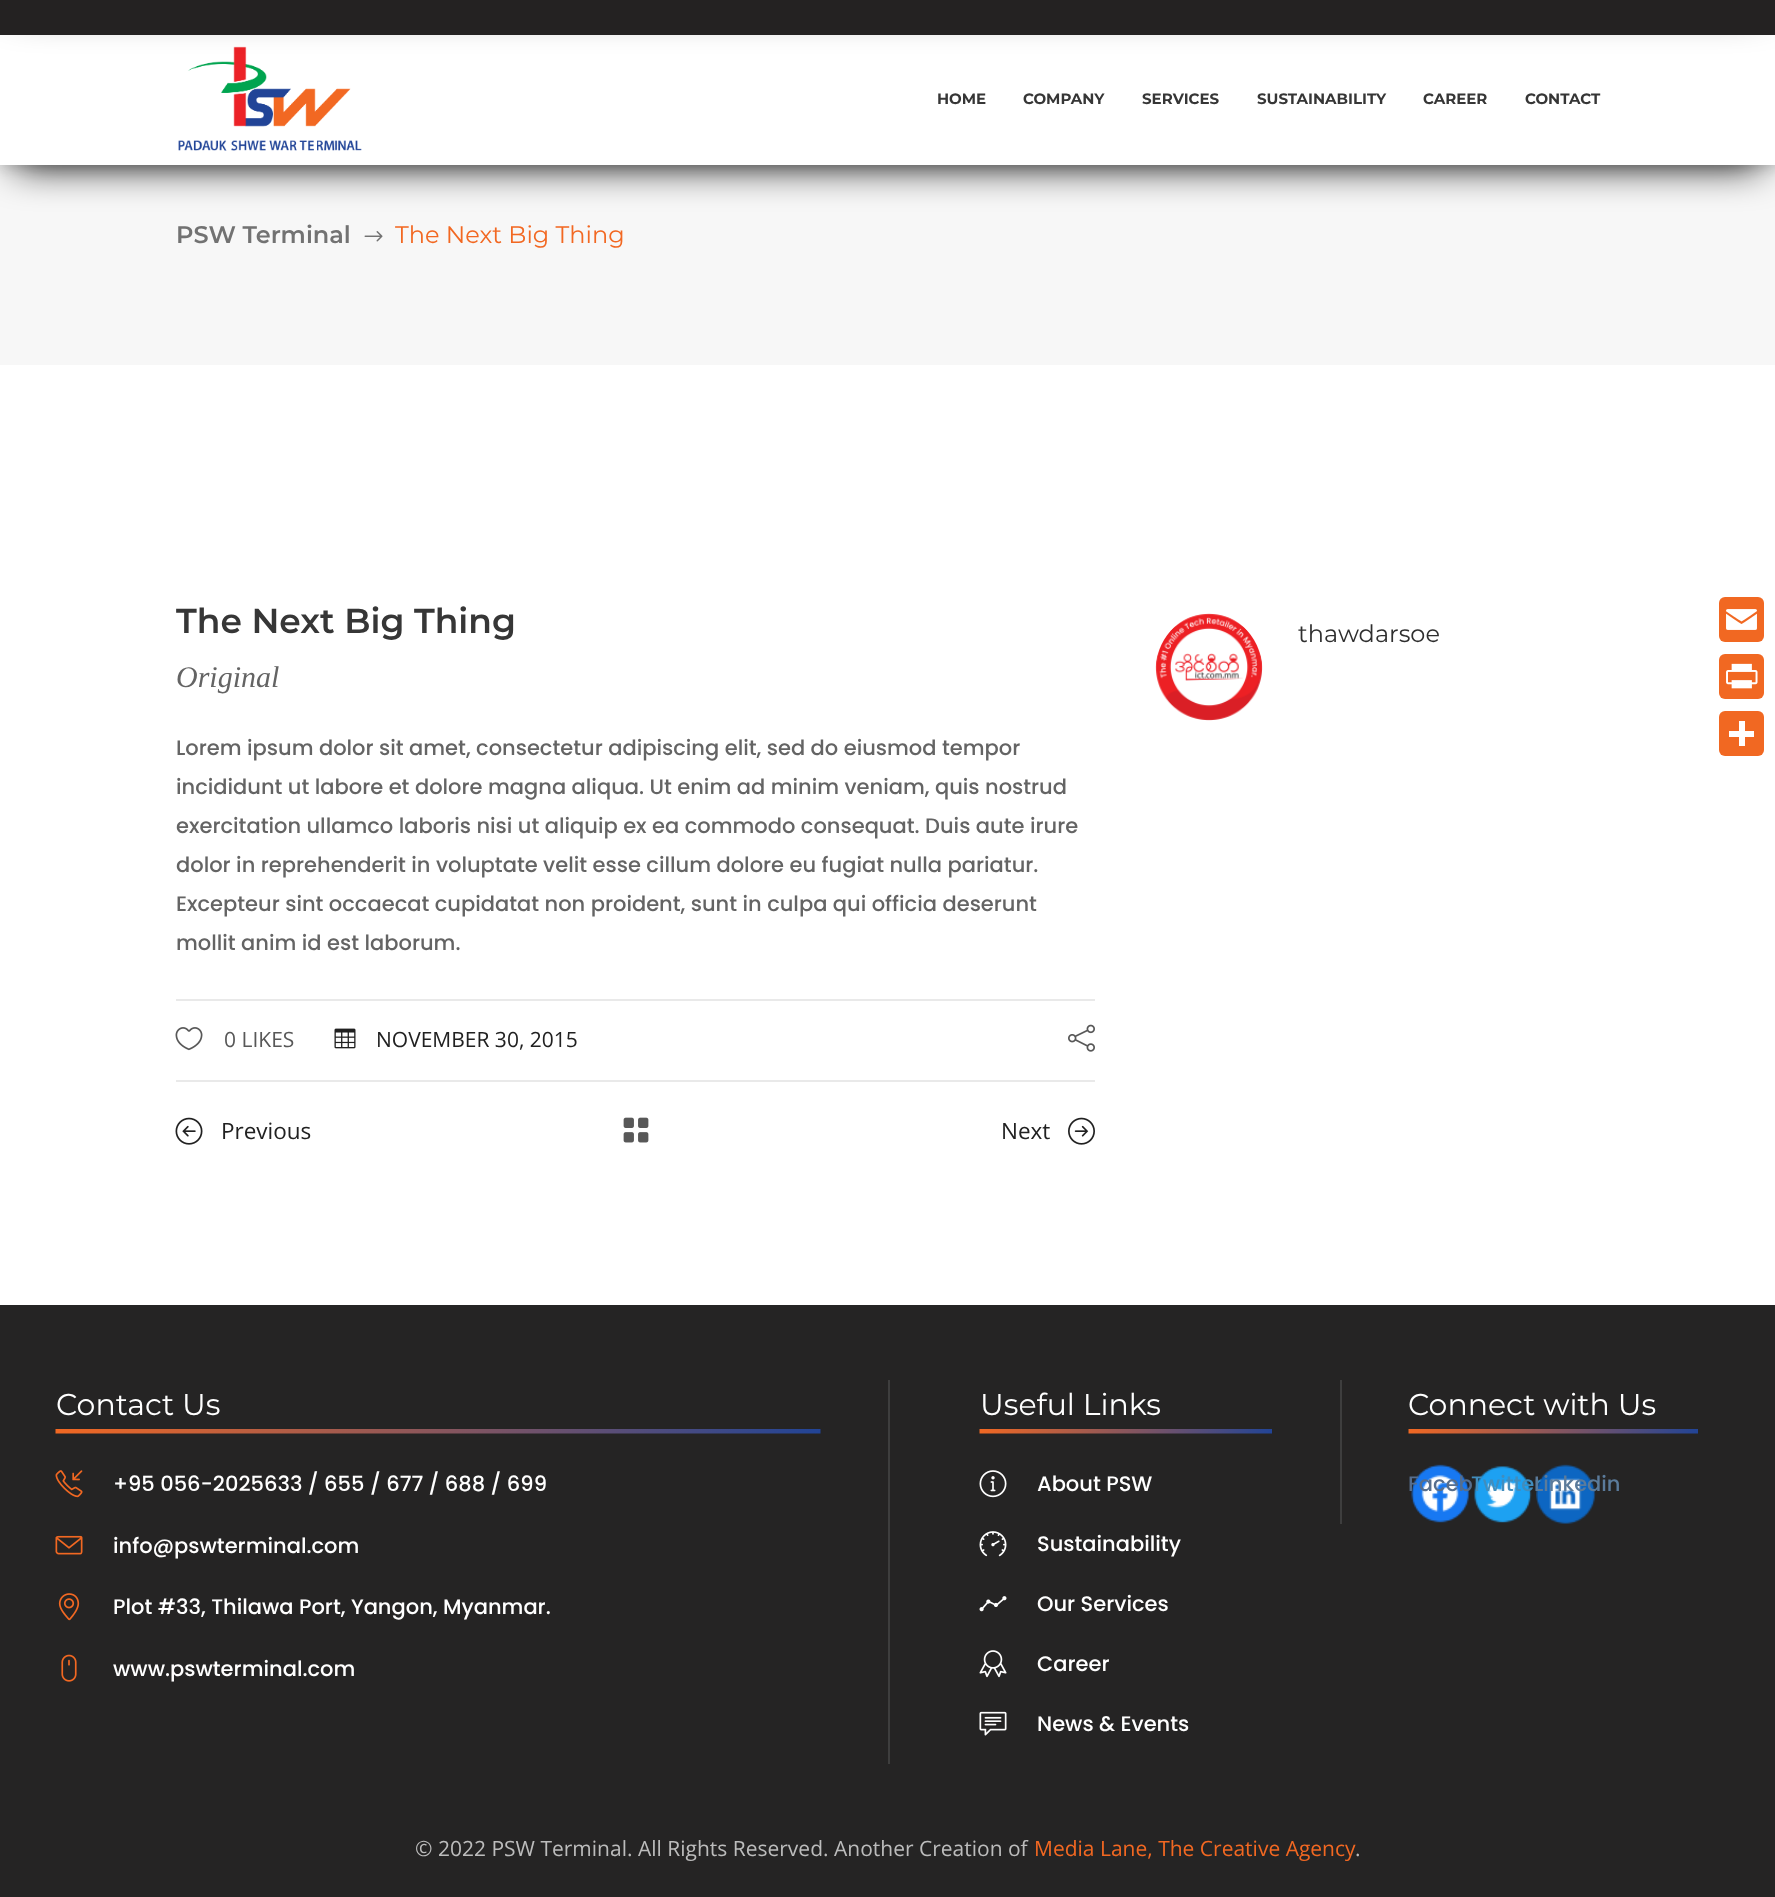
async function draw(canvas) {
	canvas.width = 1775;
	canvas.height = 1897;
	const c = canvas.getContext('2d');
	c.miterLimit = 4;
	c.fontKerning = 'normal';
	async function loadImage(src) {
		const img = new Image();
		img.src = src;
		await img.decode();
		return img;
	}

	c.fillStyle = '#f7f7f7';
	c.fillRect(0, 0, 1775, 1897);
	c.fillStyle = '#000';
	c.filter = 'blur(19.5px)';
	c.beginPath();
	c.rect(15, 65, 1746, 100);
	c.fill();
	c.filter = 'none';
	c.fillStyle = '#00000014';
	c.filter = 'blur(5.5px)';
	c.beginPath();
	c.rect(0, 36, 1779, 134);
	c.fill();
	c.filter = 'none';
	c.fillStyle = '#fff';
	c.fillRect(0, 35, 1775, 130);
	c.drawImage(await loadImage('img1.png'), 178, 46, 184, 105);
	c.fillStyle = '#000';
	c.filter = 'blur(22.5px)';
	c.beginPath();
	c.rect(15, -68, 1746, 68);
	c.fill();
	c.filter = 'none';
	c.fillStyle = '#242222';
	c.fillRect(0, 0, 1775, 35);
	c.font = 'bold 15px Montserrat';
	c.fillStyle = '#363636';
	for (const [text, x, y] of [
		['HOME', 937, 104],
		['COMPANY', 1023, 104],
		['SERVICES', 1142, 104],
		['SUSTAINABILITY', 1257, 104],
		['CAREER', 1423, 104],
		['CONTACT', 1525, 104],
	]) {
		c.fillText(text, x, y);
	}
	c.font = '600 24px Montserrat';
	c.fillStyle = '#727272';
	c.fillText('PSW Terminal', 176, 243);
	c.drawImage(await loadImage('img2.png'), 364, 231, 19, 11);
	c.font = '24px Montserrat';
	c.fillStyle = '#f26822';
	c.fillText('The Next Big Thing', 395, 243);
	c.fillStyle = '#fff';
	c.fillRect(0, 365, 1775, 940);
	c.font = '600 34.5px Montserrat';
	c.fillStyle = '#363636';
	c.fillText('The Next Big Thing', 176, 633);
	c.font = 'italic 30px Liberation Serif';
	c.fillStyle = '#646464';
	c.fillText('Original', 176, 687);
	c.font = '500 21px Poppins';
	for (const [text, x, y] of [
		['Lorem ipsum dolor sit amet, consectetur adipiscing elit, sed do eiusmod tempor', 176, 755],
		['incididunt ut labore et dolore magna aliqua. Ut enim ad minim veniam, quis nostrud', 176, 794],
		['exercitation ullamco laboris nisi ut aliquip ex ea commodo consequat. Duis aute irure', 176, 833],
		['dolor in reprehenderit in voluptate velit esse cillum dolore eu fugiat nulla pariatur.', 176, 872],
		['Excepteur sint occaecat cupidatat non proident, sunt in culpa qui officia deserunt', 176, 911],
		['mollit anim id est laborum.', 176, 950],
	]) {
		c.fillText(text, x, y);
	}
	c.fillStyle = '#e9e9e9';
	c.fillRect(176, 999, 919, 2);
	c.fillRect(176, 1080, 919, 2);
	c.drawImage(await loadImage('img3.png'), 175, 1027, 28, 24);
	c.font = '21px Open Sans';
	c.fillStyle = '#585858';
	c.fillText('0 LIKES', 224, 1047);
	c.drawImage(await loadImage('img4.png'), 334, 1028, 22, 21);
	c.fillStyle = '#212121';
	c.fillText('NOVEMBER 30, 2015', 376, 1047);
	c.drawImage(await loadImage('img5.png'), 1068, 1024, 27, 28);
	c.drawImage(await loadImage('img6.png'), 175, 1117, 28, 28);
	c.font = '22.5px Open Sans';
	c.fillText('Previous', 221, 1139);
	c.drawImage(await loadImage('img7.png'), 623, 1117, 26, 26);
	c.fillText('Next', 1001, 1139);
	c.drawImage(await loadImage('img8.png'), 1068, 1117, 27, 28);
	c.drawImage(await loadImage('img9.png'), 1155, 613, 108, 108);
	c.font = '24px Montserrat';
	c.fillStyle = '#2f2f2f';
	c.fillText('thawdarsoe', 1298, 642);
	c.fillStyle = '#252424';
	c.fillRect(0, 1305, 1775, 592);
	c.drawImage(await loadImage('img10.png'), 55, 1429, 766, 5);
	c.font = '30px Montserrat';
	c.fillStyle = '#fff';
	c.fillText('Contact Us', 56, 1415);
	c.drawImage(await loadImage('img11.png'), 55, 1470, 28, 28);
	c.font = '500 21px Poppins';
	c.fillText('+95 056-2025633 / 655 / 677 / 688 / 699', 113, 1491);
	c.drawImage(await loadImage('img12.png'), 55, 1535, 28, 20);
	c.fillText('info@pswterminal.com', 113, 1553);
	c.drawImage(await loadImage('img13.png'), 58, 1593, 22, 28);
	c.fillText('Plot #33, Thilawa Port, Yangon, Myanmar.', 113, 1614);
	c.drawImage(await loadImage('img14.png'), 61, 1654, 16, 28);
	c.fillText('www.pswterminal.com', 113, 1676);
	c.fillStyle = '#3e3e3e';
	c.fillRect(888, 1380, 2, 384);
	c.drawImage(await loadImage('img15.png'), 979, 1429, 293, 5);
	c.font = '30px Montserrat';
	c.fillStyle = '#fff';
	c.fillText('Useful Links', 980, 1415);
	c.drawImage(await loadImage('img16.png'), 979, 1470, 28, 28);
	c.font = '500 21px Poppins';
	c.fillText('About PSW', 1037, 1491);
	c.drawImage(await loadImage('img17.png'), 979, 1531, 28, 26);
	c.fillText('Sustainability', 1037, 1551);
	c.drawImage(await loadImage('img18.png'), 979, 1596, 28, 16);
	c.fillText('Our Services', 1037, 1611);
	c.drawImage(await loadImage('img19.png'), 979, 1650, 28, 28);
	c.fillText('Career', 1037, 1671);
	c.drawImage(await loadImage('img20.png'), 979, 1711, 28, 25);
	c.fillText('News & Events', 1037, 1731);
	c.fillStyle = '#3e3e3e';
	c.fillRect(1340, 1380, 2, 144);
	c.drawImage(await loadImage('img21.png'), 1408, 1429, 290, 5);
	c.font = '30px Montserrat';
	c.fillStyle = '#fff';
	c.fillText('Connect with Us', 1408, 1415);
	c.drawImage(await loadImage('img22.png'), 1411, 1464, 59, 59);
	c.font = '500 21px Poppins';
	c.fillStyle = '#566e8d';
	c.fillText('Faceb', 1408, 1491);
	c.drawImage(await loadImage('img23.png'), 1474, 1466, 58, 57);
	c.fillStyle = '#418dbd';
	c.fillText('Twitter', 1471, 1491);
	c.drawImage(await loadImage('img24.png'), 1536, 1464, 60, 60);
	c.fillStyle = '#5b7b9b';
	c.fillText('Linkedin', 1534, 1491);
	c.font = '21px Open Sans';
	c.fillStyle = '#bcbcbc';
	c.fillText('© 2022 PSW Terminal. All Rights Reserved. Another Creation of', 415, 1856);
	c.fillStyle = '#f26822';
	c.fillText('Media Lane, The Creative Agency', 1034, 1856);
	c.fillStyle = '#bcbcbc';
	c.fillText('.', 1355, 1856);
	c.fillStyle = '#f16822';
	c.beginPath();
	c.roundRect(1719, 597, 45, 45, 6);
	c.fill();
	c.drawImage(await loadImage('img25.png'), 1726, 609, 31, 21);
	c.beginPath();
	c.roundRect(1719, 654, 45, 45, 6);
	c.fill();
	c.drawImage(await loadImage('img26.png'), 1726, 663, 32, 26);
	c.beginPath();
	c.roundRect(1719, 711, 45, 45, 6);
	c.fill();
	c.fillStyle = '#fff';
	c.fillRect(1739, 721, 6, 25);
	c.fillRect(1729, 731, 25, 6);
}

draw(document.querySelector('canvas'));
